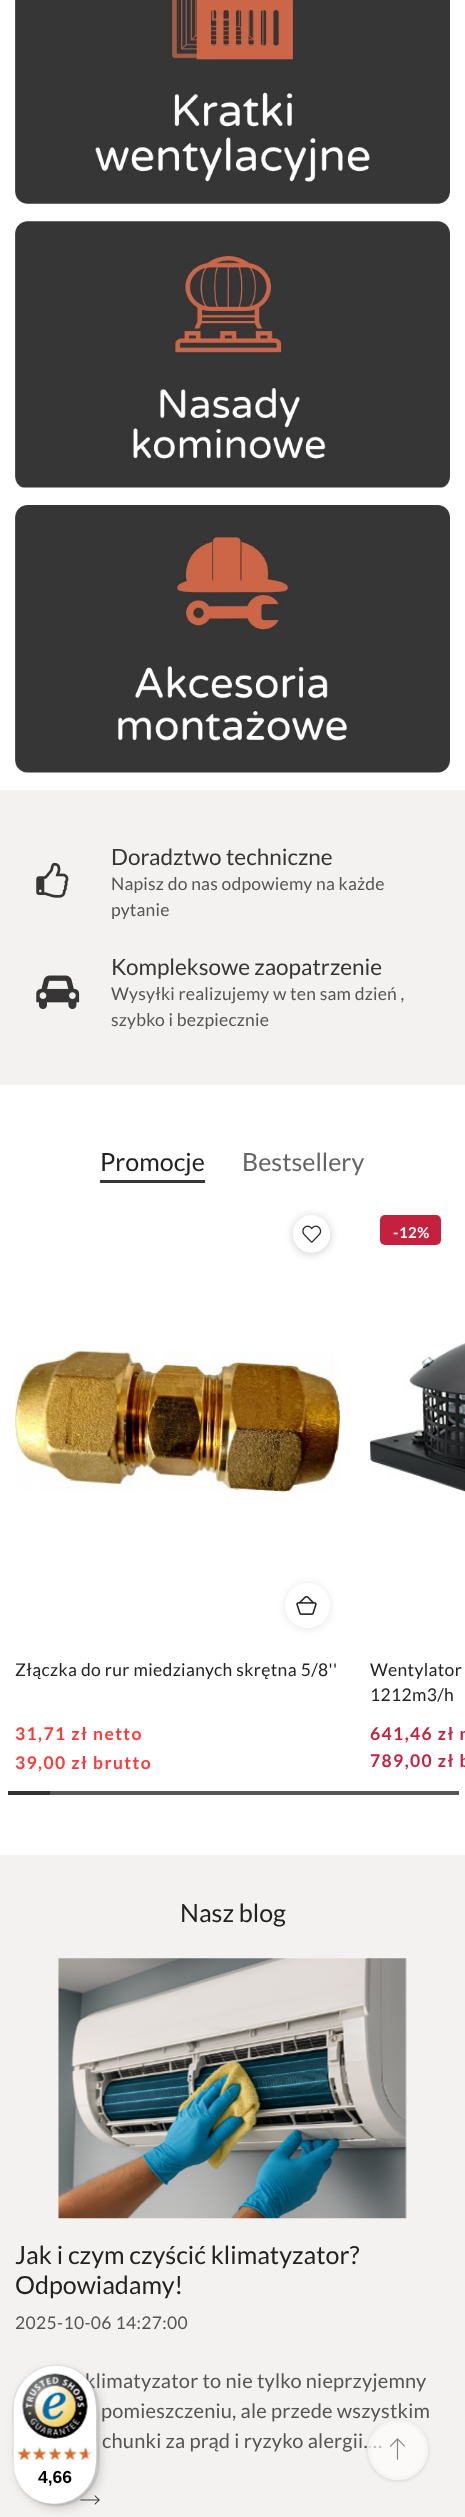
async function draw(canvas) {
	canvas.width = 465;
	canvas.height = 2517;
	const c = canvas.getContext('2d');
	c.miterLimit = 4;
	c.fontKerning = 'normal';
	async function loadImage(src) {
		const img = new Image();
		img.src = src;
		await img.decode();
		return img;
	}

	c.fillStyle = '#fff';
	c.fillRect(0, 0, 465, 2517);
	c.drawImage(await loadImage('img1.png'), 15, 0, 435, 204);
	c.drawImage(await loadImage('img2.png'), 15, 221, 435, 267);
	c.drawImage(await loadImage('img3.png'), 15, 505, 435, 268);
	c.fillStyle = '#f4f2f0';
	c.fillRect(0, 790, 465, 295);
	c.drawImage(await loadImage('img4.png'), 36, 862, 33, 36);
	c.font = '22.5px Lato';
	c.fillStyle = '#363636';
	c.fillText('Doradztwo techniczne', 111, 865);
	c.letterSpacing = '0.2px';
	c.font = '17.5px Lato';
	c.fillStyle = '#555';
	c.fillText('Napisz do nas odpowiemy na każde', 111, 890);
	c.fillText('pytanie', 111, 916);
	c.drawImage(await loadImage('img5.png'), 36, 975, 44, 34);
	c.letterSpacing = '0px';
	c.font = '22.5px Lato';
	c.fillStyle = '#363636';
	c.fillText('Kompleksowe zaopatrzenie', 111, 975);
	c.letterSpacing = '0.2px';
	c.font = '17.5px Lato';
	c.fillStyle = '#555';
	c.fillText('Wysyłki realizujemy w ten sam dzień ,', 111, 1000);
	c.fillText('szybko i bezpiecznie', 111, 1026);
	c.letterSpacing = '0px';
	c.font = '25px Lato';
	c.fillStyle = '#222';
	c.fillText('Promocje', 100, 1171);
	c.fillStyle = '#363636';
	c.fillRect(100, 1180, 105, 3);
	c.fillStyle = '#646464';
	c.fillText('Bestsellery', 242, 1171);
	c.fillStyle = '#00000033';
	c.filter = 'blur(4px)';
	c.beginPath();
	c.roundRect(293, 1216, 37, 38, 18.5);
	c.fill();
	c.filter = 'none';
	c.fillStyle = '#fff';
	c.beginPath();
	c.roundRect(293, 1215, 37, 38, 18.5);
	c.fill();
	c.save();
	c.beginPath();
	c.roundRect(293, 1215, 37, 38, 18.5);
	c.clip();
	c.fillRect(293, 1224, 37, 20);
	c.restore();
	c.drawImage(await loadImage('img6.png'), 302, 1225, 20, 18);
	c.drawImage(await loadImage('img7.png'), 15, 1350, 325, 142);
	c.fillStyle = '#0000001a';
	c.filter = 'blur(4px)';
	c.beginPath();
	c.roundRect(285, 1584, 45, 45, 22.5);
	c.fill();
	c.filter = 'none';
	c.fillStyle = '#fff';
	c.beginPath();
	c.arc(307.5, 1605.5, 22.5, 0, 2 * Math.PI);
	c.fill();
	c.drawImage(await loadImage('img8.png'), 296, 1596, 21, 19);
	c.letterSpacing = '0.35px';
	c.font = '17.5px Lato';
	c.fillStyle = '#222';
	c.fillText('Złączka do rur miedzianych skrętna 5/8\'\'', 15, 1676);
	c.letterSpacing = '1.4px';
	c.font = 'bold 17.5px Lato';
	c.fillStyle = '#fa3b39';
	c.fillText('31,71 zł netto', 15, 1740);
	c.fillText('39,00 zł brutto', 15, 1769);
	c.fillStyle = '#c5203d';
	c.beginPath();
	c.roundRect(380, 1215, 61, 30, 5);
	c.fill();
	c.letterSpacing = '0.5px';
	c.font = 'bold 15px Lato';
	c.fillStyle = '#fff';
	c.fillText('-12%', 393, 1238);
	c.drawImage(await loadImage('img9.png'), 370, 1343, 95, 150);
	c.letterSpacing = '0.35px';
	c.font = '17.5px Lato';
	c.fillStyle = '#222';
	c.fillText('Wentylator', 370, 1676);
	c.fillText('1212m3/h', 370, 1701);
	c.letterSpacing = '1.4px';
	c.font = 'bold 17.5px Lato';
	c.fillStyle = '#c52240';
	c.fillText('641,46 zł n', 370, 1740);
	c.fillText('789,00 zł b', 370, 1767);
	for (const [x, y, w, h, color] of [
		[50, 1791, 409, 4, '#555'],
		[8, 1791, 42, 4, '#313131'],
		[0, 1855, 465, 662, '#f4f2f0'],
	]) {
		c.fillStyle = color;
		c.fillRect(x, y, w, h);
	}
	c.letterSpacing = '0px';
	c.font = '25px Lato';
	c.fillStyle = '#222';
	c.fillText('Nasz blog', 180, 1922);
	c.drawImage(await loadImage('img10.png'), 58, 1958, 349, 261);
	c.fillText('Jak i czym czyścić klimatyzator?', 15, 2264);
	c.fillText('Odpowiadamy!', 15, 2294);
	c.letterSpacing = '0.35px';
	c.font = '17.5px Lato';
	c.fillStyle = '#555';
	c.fillText('2025-10-06 14:27:00', 15, 2329);
	c.letterSpacing = '0.2px';
	c.font = '20px Lato';
	for (const [text, x, y] of [
		['klimatyzator to nie tylko nieprzyjemny', 85, 2388],
		['pomieszczeniu, ale przede wszystkim', 101, 2418],
		['chunki za prąd i ryzyko alergii.…', 102, 2448],
	]) {
		c.fillText(text, x, y);
	}
	c.drawImage(await loadImage('img11.png'), 80, 2495, 20, 10);
	c.fillStyle = '#00000026';
	c.filter = 'blur(5px)';
	c.beginPath();
	c.roundRect(16, 2369, 85, 140, 42.5);
	c.fill();
	c.filter = 'none';
	c.filter = 'blur(1px)';
	c.beginPath();
	c.roundRect(14, 2366, 85, 140, 42.5);
	c.fill();
	c.filter = 'none';
	c.fillStyle = '#fff';
	c.beginPath();
	c.roundRect(13, 2365, 85, 140, 42.5);
	c.fill();
	c.fillStyle = '#0000001a';
	c.beginPath();
	c.moveTo(56, 2366);
	c.bezierCurveTo(69, 2366, 80, 2371, 88, 2380);
	c.bezierCurveTo(67, 2356, 29, 2362, 16, 2391);
	c.bezierCurveTo(11, 2403, 13, 2421, 13, 2435);
	c.bezierCurveTo(13, 2454, 10, 2475, 24, 2491);
	c.bezierCurveTo(18, 2483, 14, 2474, 14, 2464);
	c.lineTo(14, 2409);
	c.bezierCurveTo(14, 2385, 33, 2366, 56, 2366);
	c.closePath();
	c.fill();
	c.fillStyle = '#00000033';
	c.beginPath();
	c.moveTo(34, 2499);
	c.bezierCurveTo(59, 2514, 91, 2500, 97, 2471);
	c.bezierCurveTo(99, 2461, 98, 2446, 98, 2435);
	c.bezierCurveTo(98, 2409, 102, 2384, 75, 2370);
	c.bezierCurveTo(100, 2384, 96, 2409, 96, 2434);
	c.bezierCurveTo(96, 2444, 97, 2459, 95, 2470);
	c.bezierCurveTo(90, 2498, 59, 2512, 34, 2499);
	c.closePath();
	c.fill();
	c.fillStyle = '#32323233';
	c.beginPath();
	c.moveTo(27, 2494);
	c.bezierCurveTo(35, 2501, 45, 2505, 56, 2505);
	c.bezierCurveTo(79, 2505, 98, 2486, 98, 2462);
	c.lineTo(98, 2408);
	c.bezierCurveTo(98, 2395, 92, 2383, 83, 2375);
	c.bezierCurveTo(101, 2391, 97, 2413, 97, 2434);
	c.bezierCurveTo(97, 2448, 99, 2466, 94, 2478);
	c.bezierCurveTo(82, 2504, 49, 2512, 27, 2494);
	c.closePath();
	c.fill();
	c.fillStyle = '#ffffff4d';
	c.beginPath();
	c.moveTo(27, 2494);
	c.bezierCurveTo(35, 2501, 45, 2505, 56, 2505);
	c.bezierCurveTo(79, 2505, 98, 2486, 98, 2462);
	c.lineTo(98, 2408);
	c.bezierCurveTo(98, 2395, 92, 2383, 83, 2375);
	c.bezierCurveTo(101, 2391, 97, 2413, 97, 2434);
	c.bezierCurveTo(97, 2448, 99, 2466, 94, 2478);
	c.bezierCurveTo(82, 2504, 49, 2512, 27, 2494);
	c.closePath();
	c.fill();
	c.drawImage(await loadImage('img12.png'), 22, 2373, 66, 66);
	c.drawImage(await loadImage('img13.png'), 17, 2447, 14, 13);
	c.drawImage(await loadImage('img14.png'), 34, 2447, 12, 13);
	c.drawImage(await loadImage('img15.png'), 49, 2448, 12, 12);
	c.drawImage(await loadImage('img16.png'), 64, 2447, 14, 13);
	c.drawImage(await loadImage('img17.png'), 79, 2448, 14, 12);
	c.drawImage(await loadImage('img18.png'), 17, 2447, 15, 13);
	c.drawImage(await loadImage('img19.png'), 32, 2447, 15, 13);
	c.drawImage(await loadImage('img20.png'), 48, 2447, 14, 13);
	c.drawImage(await loadImage('img21.png'), 63, 2447, 14, 13);
	c.drawImage(await loadImage('img22.png'), 78, 2447, 10, 13);
	c.letterSpacing = '0px';
	c.font = 'bold 17.5px Liberation Sans';
	c.fillStyle = '#000';
	c.fillText('4,66', 38, 2483);
	c.save();
	c.beginPath();
	c.moveTo(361, 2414);
	c.lineTo(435, 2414);
	c.lineTo(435, 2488);
	c.lineTo(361, 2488);
	c.closePath();
	c.moveTo(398, 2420);
	c.bezierCurveTo(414.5, 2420, 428, 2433.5, 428, 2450);
	c.bezierCurveTo(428, 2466.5, 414.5, 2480, 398, 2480);
	c.bezierCurveTo(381.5, 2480, 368, 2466.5, 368, 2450);
	c.bezierCurveTo(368, 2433.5, 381.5, 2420, 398, 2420);
	c.closePath();
	c.clip('evenodd');
	c.fillStyle = '#0000001f';
	c.filter = 'blur(2px)';
	c.beginPath();
	c.roundRect(368, 2421, 60, 60, 30);
	c.fill();
	c.filter = 'none';
	c.restore();
	c.fillStyle = '#ffffff99';
	c.beginPath();
	c.arc(398, 2450, 30, 0, 2 * Math.PI);
	c.fill();
	c.beginPath();
	c.arc(398, 2450, 28.5, 0, 2 * Math.PI);
	c.strokeStyle = '#f2f2f299';
	c.lineWidth = 3;
	c.stroke();
	c.drawImage(await loadImage('img23.png'), 390, 2438, 15, 22);
}

draw(document.querySelector('canvas'));
